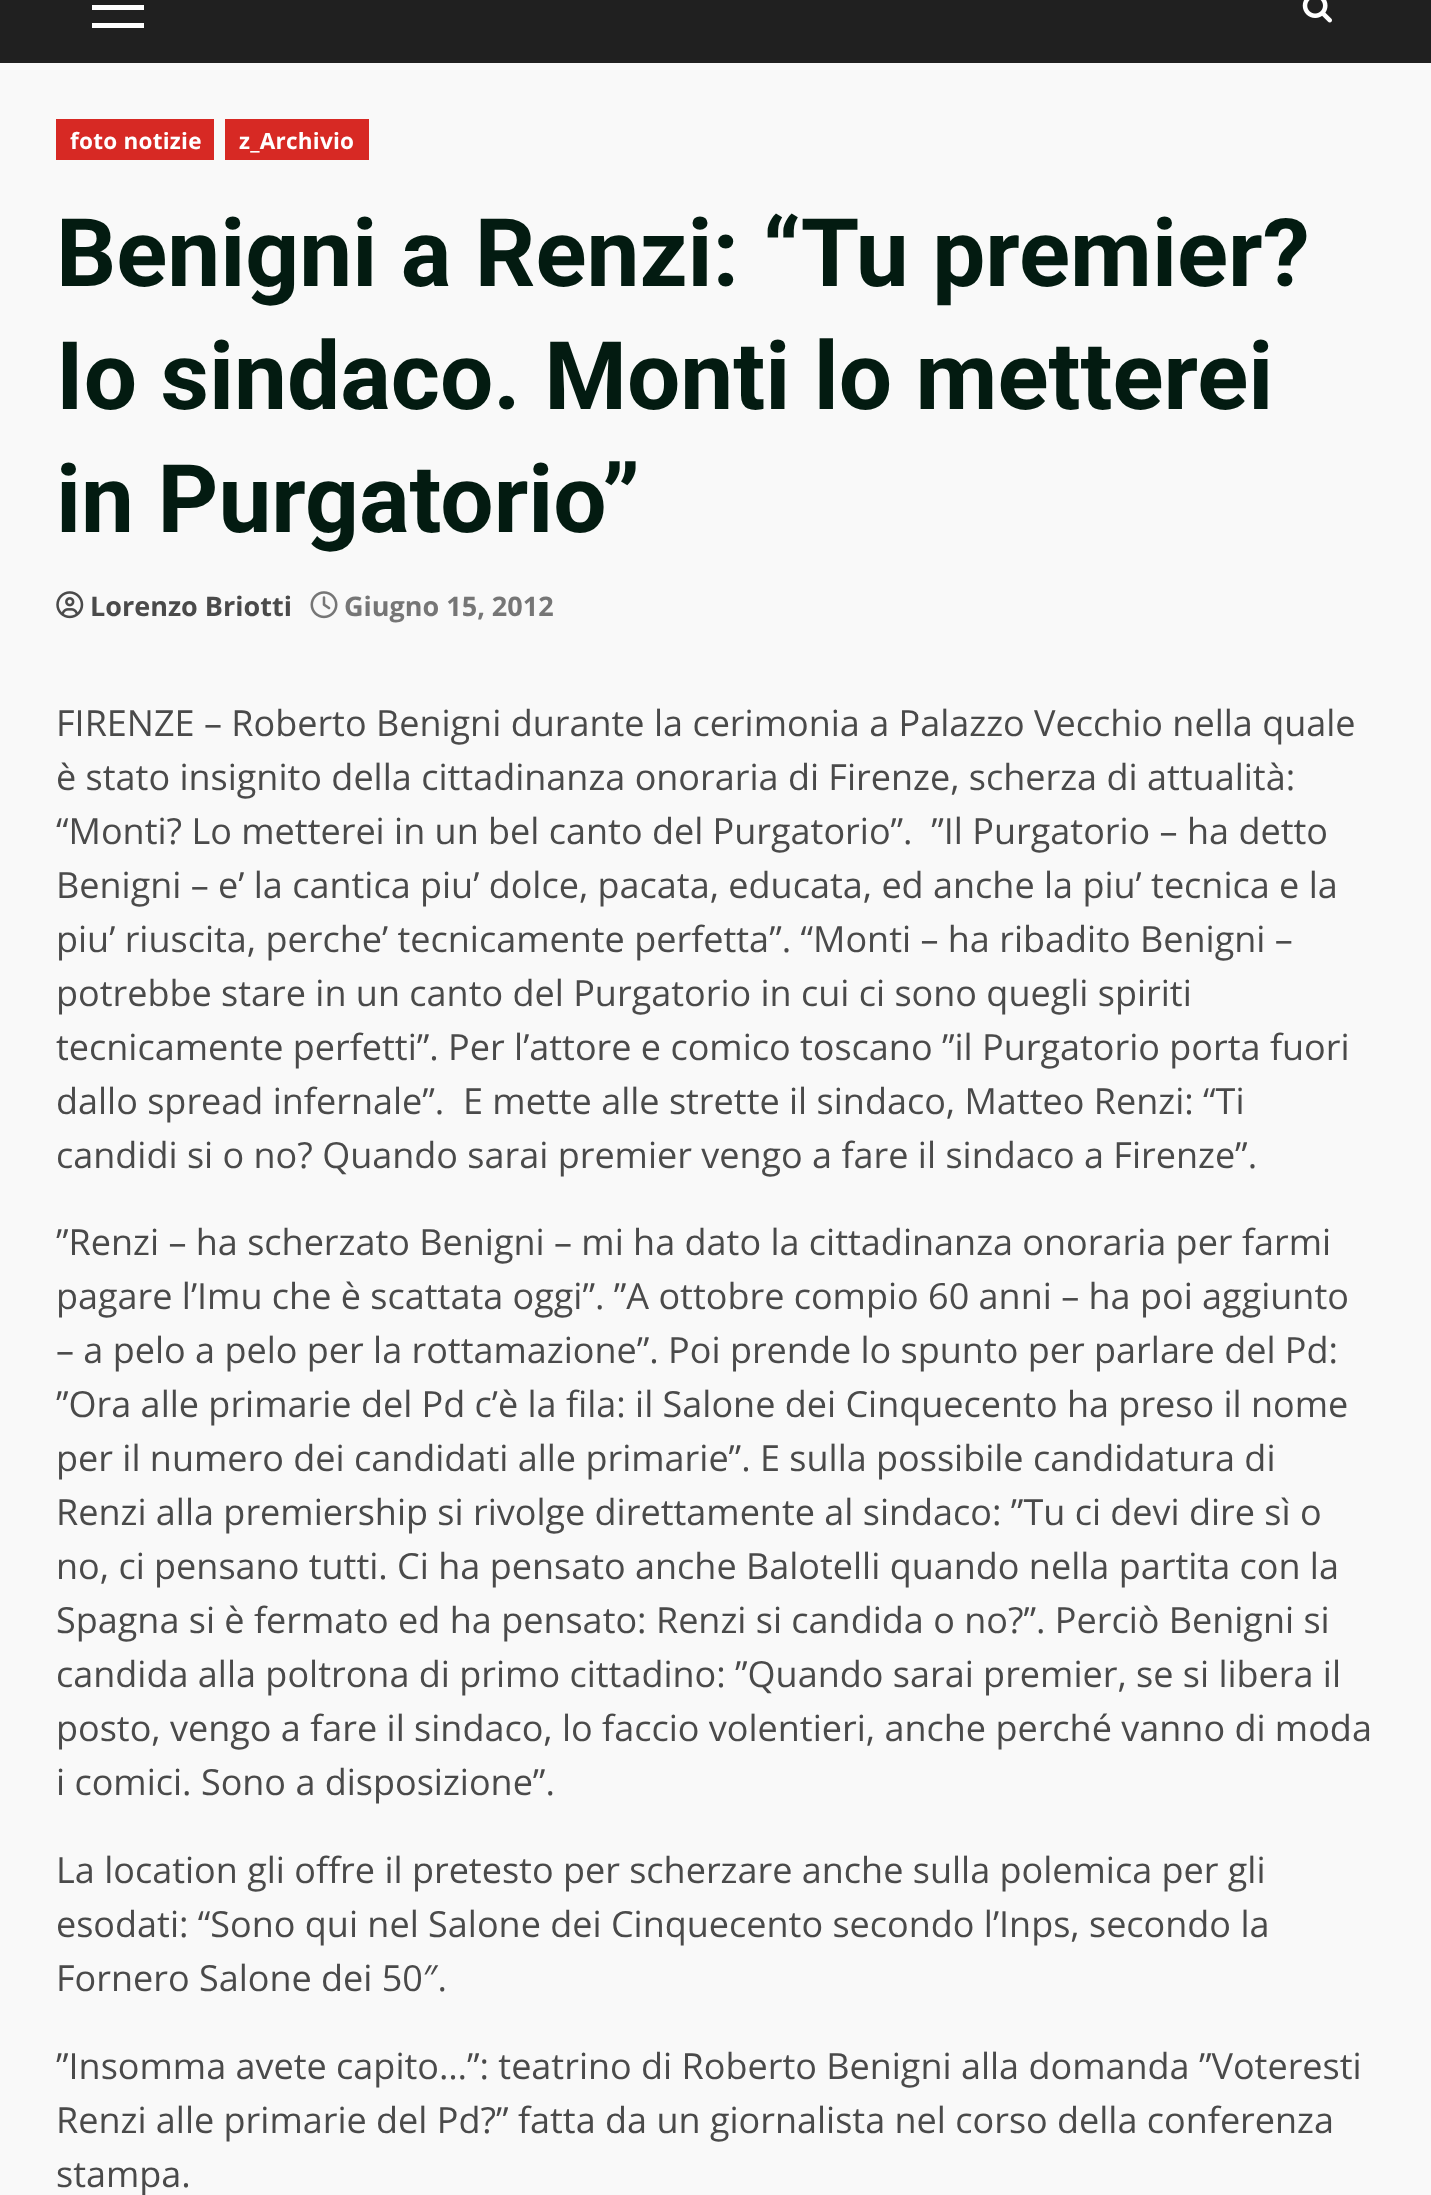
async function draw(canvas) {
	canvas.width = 1431;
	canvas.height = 2195;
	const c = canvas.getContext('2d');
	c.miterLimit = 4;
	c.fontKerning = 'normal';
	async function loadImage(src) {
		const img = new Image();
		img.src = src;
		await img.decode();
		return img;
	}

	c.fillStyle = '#f9f9f9';
	c.fillRect(0, 0, 1431, 2195);
	for (const [x, y, w, h, color] of [
		[0, 0, 1431, 63, '#202020'],
		[92, 5, 52, 5, '#fff'],
		[92, 23, 52, 5, '#fff'],
	]) {
		c.fillStyle = color;
		c.fillRect(x, y, w, h);
	}
	c.drawImage(await loadImage('img1.png'), 1302, 0, 30, 23);
	c.fillStyle = '#d72924';
	c.fillRect(56, 119, 158, 41);
	c.letterSpacing = '0.25px';
	c.font = 'bold 22.5px Open Sans';
	c.fillStyle = '#fff';
	c.fillText('foto notizie', 70, 149);
	c.fillStyle = '#d72924';
	c.fillRect(225, 119, 144, 41);
	c.fillStyle = '#fff';
	c.fillText('z_Archivio', 239, 149);
	c.letterSpacing = '0px';
	c.font = 'bold 94.5px Roboto';
	c.fillStyle = '#031b11';
	for (const [text, x, y] of [
		['Benigni a Renzi: “Tu premier?', 56, 286],
		['Io sindaco. Monti lo metterei', 56, 409],
		['in Purgatorio”', 56, 532],
	]) {
		c.fillText(text, x, y);
	}
	c.drawImage(await loadImage('img2.png'), 56, 591, 28, 28);
	c.font = 'bold 27px Open Sans';
	c.fillStyle = '#4a4a4a';
	c.fillText('Lorenzo Briotti', 90, 616);
	c.drawImage(await loadImage('img3.png'), 310, 591, 28, 28);
	c.fillStyle = '#767676';
	c.fillText('Giugno 15, 2012', 344, 616);
	c.font = '36px Open Sans';
	c.fillStyle = '#4a4a4a';
	for (const [text, x, y] of [
		['FIRENZE – Roberto Benigni durante la cerimonia a Palazzo Vecchio nella quale', 56, 736],
		['è stato insignito della cittadinanza onoraria di Firenze, scherza di attualità:', 56, 790],
		['“Monti? Lo metterei in un bel canto del Purgatorio”.  ”Il Purgatorio – ha detto', 56, 844],
		['Benigni – e’ la cantica piu’ dolce, pacata, educata, ed anche la piu’ tecnica e la', 56, 898],
		['piu’ riuscita, perche’ tecnicamente perfetta”. “Monti – ha ribadito Benigni –', 56, 952],
		['potrebbe stare in un canto del Purgatorio in cui ci sono quegli spiriti', 56, 1006],
		['tecnicamente perfetti”. Per l’attore e comico toscano ”il Purgatorio porta fuori', 56, 1060],
		['dallo spread infernale”.  E mette alle strette il sindaco, Matteo Renzi: “Ti', 56, 1114],
		['candidi si o no? Quando sarai premier vengo a fare il sindaco a Firenze”.', 56, 1168],
		['”Renzi – ha scherzato Benigni – mi ha dato la cittadinanza onoraria per farmi', 56, 1255],
		['pagare l’Imu che è scattata oggi”. ”A ottobre compio 60 anni – ha poi aggiunto', 56, 1309],
		['– a pelo a pelo per la rottamazione”. Poi prende lo spunto per parlare del Pd:', 56, 1363],
		['”Ora alle primarie del Pd c’è la fila: il Salone dei Cinquecento ha preso il nome', 56, 1417],
		['per il numero dei candidati alle primarie”. E sulla possibile candidatura di', 56, 1471],
		['Renzi alla premiership si rivolge direttamente al sindaco: ”Tu ci devi dire sì o', 56, 1525],
		['no, ci pensano tutti. Ci ha pensato anche Balotelli quando nella partita con la', 56, 1579],
		['Spagna si è fermato ed ha pensato: Renzi si candida o no?”. Perciò Benigni si', 56, 1633],
		['candida alla poltrona di primo cittadino: ”Quando sarai premier, se si libera il', 56, 1687],
		['posto, vengo a fare il sindaco, lo faccio volentieri, anche perché vanno di moda', 56, 1741],
		['i comici. Sono a disposizione”.', 56, 1795],
		['La location gli offre il pretesto per scherzare anche sulla polemica per gli', 56, 1883],
		['esodati: “Sono qui nel Salone dei Cinquecento secondo l’Inps, secondo la', 56, 1937],
		['Fornero Salone dei 50″.', 56, 1991],
		['”Insomma avete capito…”: teatrino di Roberto Benigni alla domanda ”Voteresti', 56, 2079],
		['Renzi alle primarie del Pd?” fatta da un giornalista nel corso della conferenza', 56, 2133],
		['stampa.', 56, 2187],
	]) {
		c.fillText(text, x, y);
	}
}

draw(document.querySelector('canvas'));
